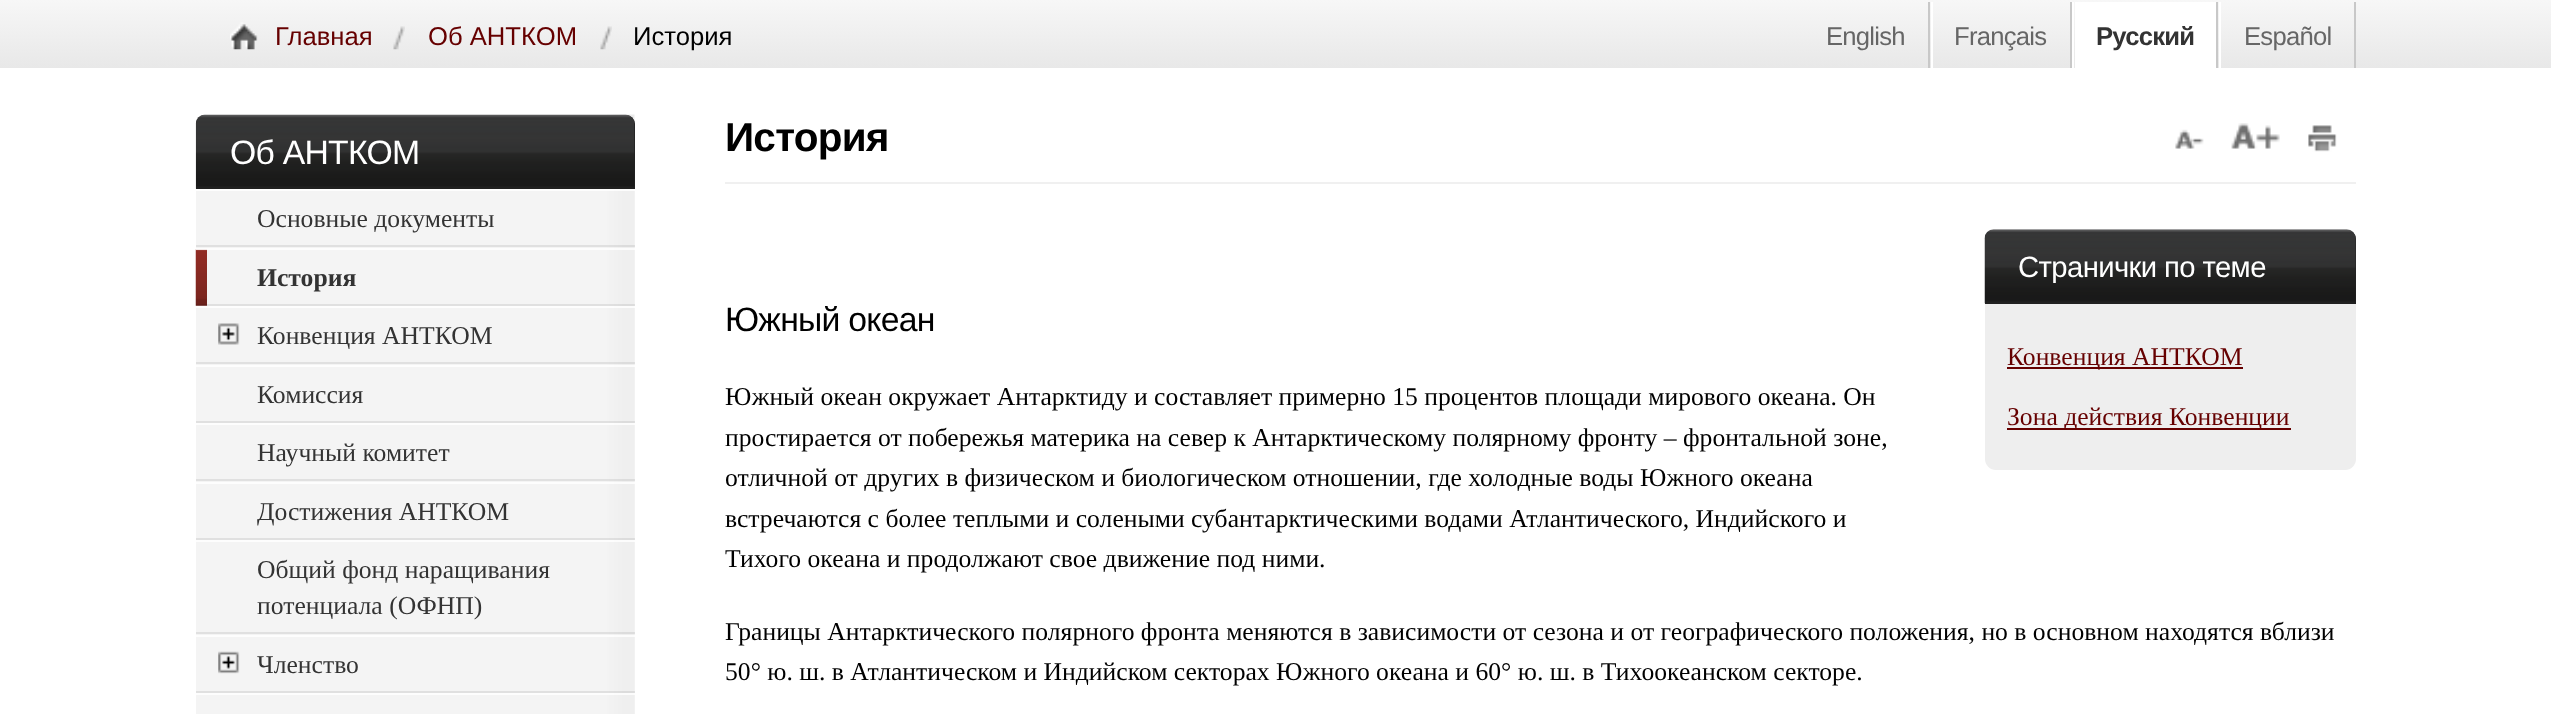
async function draw(canvas) {
	canvas.width = 2551;
	canvas.height = 714;
	const c = canvas.getContext('2d');
	c.miterLimit = 4;
	c.fontKerning = 'normal';
	async function loadImage(src) {
		const img = new Image();
		img.src = src;
		await img.decode();
		return img;
	}
	let gradient;

	c.fillStyle = '#fff';
	c.fillRect(0, 0, 2551, 714);
	gradient = c.createLinearGradient(1276, 0, 1276, 68);
	gradient.addColorStop(0, '#f7f7f7');
	gradient.addColorStop(1, '#e8e8e8');
	c.fillStyle = gradient;
	c.fillRect(0, 0, 2551, 68);
	c.drawImage(await loadImage('img1.png'), 230, 22, 28, 28);
	c.font = '25.65px Liberation Sans';
	c.fillStyle = '#600';
	c.fillText('Главная', 275, 45);
	c.drawImage(await loadImage('img2.png'), 393, 26, 12, 24);
	c.fillText('Об АНТКОМ', 428, 45);
	c.drawImage(await loadImage('img3.png'), 600, 26, 12, 24);
	c.fillStyle = '#000';
	c.fillText('История', 633, 45);
	c.fillStyle = '#c8c8c8';
	c.fillRect(1928, 2, 2, 66);
	c.letterSpacing = '-0.75px';
	c.fillStyle = '#666';
	c.fillText('English', 1826, 45);
	c.fillStyle = '#c8c8c8';
	c.fillRect(2070, 2, 2, 66);
	c.fillStyle = '#fff';
	c.fillRect(1931, 2, 2, 66);
	c.fillStyle = '#666';
	c.fillText('Français', 1954, 45);
	for (const [x, y, w, h, color] of [
		[2216, 2, 2, 66, '#c8c8c8'],
		[2072, 2, 2, 66, '#fff'],
		[2075, 2, 141, 66, '#fff'],
	]) {
		c.fillStyle = color;
		c.fillRect(x, y, w, h);
	}
	c.font = 'bold 25.65px Liberation Sans';
	c.fillStyle = '#333';
	c.fillText('Русский', 2096, 45);
	c.fillStyle = '#c8c8c8';
	c.fillRect(2354, 2, 2, 66);
	c.fillStyle = '#fff';
	c.fillRect(2219, 2, 2, 66);
	c.font = '25.65px Liberation Sans';
	c.fillStyle = '#666';
	c.fillText('Español', 2244, 45);
	c.drawImage(await loadImage('img4.png'), 607, 114, 28, 600);
	c.fillStyle = '#f0f0f0bf';
	c.beginPath();
	c.moveTo(207, 115);
	c.lineTo(624, 115);
	c.bezierCurveTo(630, 115, 635, 120, 635, 126);
	c.lineTo(635, 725);
	c.lineTo(207, 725);
	c.bezierCurveTo(201, 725, 196, 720, 196, 714);
	c.lineTo(196, 126);
	c.bezierCurveTo(196, 120, 201, 115, 207, 115);
	c.closePath();
	c.fill();
	c.fillStyle = '#202020';
	c.beginPath();
	c.roundRect(196, 115, 439, 74, [9, 9, 0, 0]);
	c.fill();
	c.drawImage(await loadImage('img5.png'), 195, 114, 440, 75);
	c.font = '33.75px Liberation Sans';
	c.fillStyle = '#fff';
	c.fillText('Об АНТКОМ', 230, 164);
	c.fillStyle = '#ffffffcc';
	c.fillRect(196, 189, 439, 2);
	c.fillStyle = '#00000014';
	c.fillRect(196, 245, 439, 2);
	c.letterSpacing = '0px';
	c.font = '25.65px Liberation Serif';
	c.fillStyle = '#333';
	c.fillText('Основные документы', 257, 227);
	c.drawImage(await loadImage('img6.png'), 195, 249, 12, 57);
	c.fillStyle = '#ffffffcc';
	c.fillRect(196, 248, 439, 2);
	c.fillStyle = '#00000014';
	c.fillRect(196, 304, 439, 2);
	c.font = 'bold 25.65px Liberation Serif';
	c.fillStyle = '#333';
	c.fillText('История', 257, 286);
	c.fillStyle = '#ffffffcc';
	c.fillRect(196, 306, 439, 2);
	c.fillStyle = '#00000014';
	c.fillRect(196, 362, 439, 2);
	c.drawImage(await loadImage('img7.png'), 218, 323, 22, 22);
	c.font = '25.65px Liberation Serif';
	c.fillStyle = '#333';
	c.fillText('Конвенция АНТКОМ', 257, 344);
	c.fillStyle = '#ffffffcc';
	c.fillRect(196, 365, 439, 2);
	c.fillStyle = '#00000014';
	c.fillRect(196, 421, 439, 2);
	c.fillStyle = '#333';
	c.fillText('Комиссия', 257, 403);
	c.fillStyle = '#ffffffcc';
	c.fillRect(196, 423, 439, 2);
	c.fillStyle = '#00000014';
	c.fillRect(196, 479, 439, 2);
	c.fillStyle = '#333';
	c.fillText('Научный комитет', 257, 461);
	c.fillStyle = '#ffffffcc';
	c.fillRect(196, 482, 439, 2);
	c.fillStyle = '#00000014';
	c.fillRect(196, 538, 439, 2);
	c.fillStyle = '#333';
	c.fillText('Достижения АНТКОМ', 257, 520);
	c.fillStyle = '#ffffffcc';
	c.fillRect(196, 540, 439, 2);
	c.fillStyle = '#00000014';
	c.fillRect(196, 632, 439, 2);
	c.fillStyle = '#333';
	c.fillText('Общий фонд наращивания', 257, 578);
	c.fillText('потенциала (ОФНП)', 257, 614);
	c.fillStyle = '#ffffffcc';
	c.fillRect(196, 635, 439, 2);
	c.fillStyle = '#00000014';
	c.fillRect(196, 691, 439, 2);
	c.drawImage(await loadImage('img8.png'), 218, 651, 22, 23);
	c.fillStyle = '#333';
	c.fillText('Членство', 257, 673);
	c.fillStyle = '#ffffffcc';
	c.fillRect(196, 693, 439, 2);
	c.fillStyle = '#f0f0f0';
	c.fillRect(725, 182, 1631, 2);
	c.letterSpacing = '-0.75px';
	c.font = 'bold 40.5px Liberation Sans';
	c.fillStyle = '#000';
	c.fillText('История', 725, 151);
	c.drawImage(await loadImage('img9.png'), 2175, 129, 29, 20);
	c.drawImage(await loadImage('img10.png'), 2231, 123, 49, 26);
	c.drawImage(await loadImage('img11.png'), 2308, 125, 29, 27);
	c.fillStyle = '#eee';
	c.beginPath();
	c.roundRect(1985, 230, 371, 240, 11);
	c.fill();
	c.fillStyle = '#202020';
	c.beginPath();
	c.roundRect(1985, 230, 371, 74, [9, 9, 0, 0]);
	c.fill();
	c.drawImage(await loadImage('img12.png'), 1984, 229, 372, 75);
	c.letterSpacing = '-0.6px';
	c.font = '29.25px Liberation Sans';
	c.fillStyle = '#fff';
	c.fillText('Странички по теме', 2018, 277);
	c.fillStyle = '#600';
	c.fillRect(2007, 367, 236, 2);
	c.letterSpacing = '0px';
	c.font = '25.65px Liberation Serif';
	c.fillText('Конвенция АНТКОМ', 2007, 365);
	c.fillRect(2007, 428, 284, 2);
	c.fillText('Зона действия Конвенции', 2007, 425);
	c.letterSpacing = '-0.75px';
	c.font = '33.75px Liberation Sans';
	c.fillStyle = '#000';
	c.fillText('Южный океан', 725, 331);
	c.letterSpacing = '0px';
	c.font = '25.65px Liberation Serif';
	for (const [text, x, y] of [
		['Южный океан окружает Антарктиду и составляет примерно 15 процентов площади мирового океана. Он', 725, 405],
		['простирается от побережья материка на север к Антарктическому полярному фронту – фронтальной зоне,', 725, 446],
		['отличной от других в физическом и биологическом отношении, где холодные воды Южного океана', 725, 486],
		['встречаются с более теплыми и солеными субантарктическими водами Атлантического, Индийского и', 725, 527],
		['Тихого океана и продолжают свое движение под ними.', 725, 567],
		['Границы Антарктического полярного фронта меняются в зависимости от сезона и от географического положения, но в основном находятся вблизи', 725, 640],
		['50° ю. ш. в Атлантическом и Индийском секторах Южного океана и 60° ю. ш. в Тихоокеанском секторе.', 725, 680],
	]) {
		c.fillText(text, x, y);
	}
}

draw(document.querySelector('canvas'));
